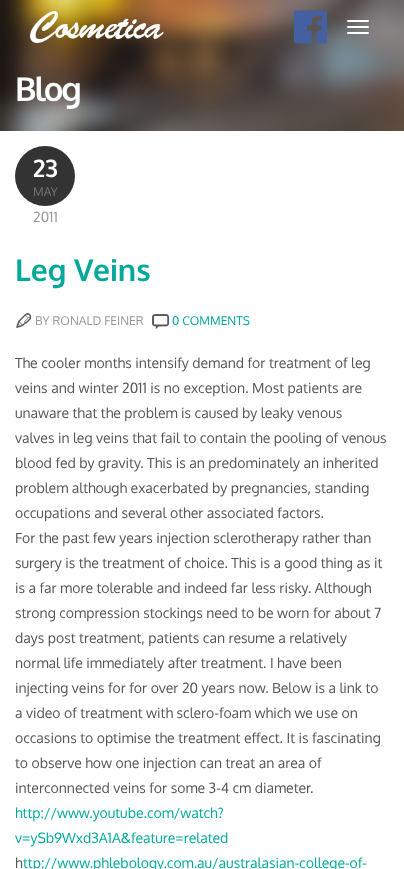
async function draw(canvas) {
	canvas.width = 404;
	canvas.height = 869;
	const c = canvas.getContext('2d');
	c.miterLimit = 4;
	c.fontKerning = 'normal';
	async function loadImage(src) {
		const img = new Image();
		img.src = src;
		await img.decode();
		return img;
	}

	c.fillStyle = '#fff';
	c.fillRect(0, 0, 404, 869);
	c.drawImage(await loadImage('img3.png'), 0, 0, 404, 131);
	c.drawImage(await loadImage('img1.png'), 30, 11, 134, 32);
	c.drawImage(await loadImage('img2.png'), 294, 10, 33, 34);
	c.beginPath();
	c.roundRect(347, 20, 22, 2, 1);
	c.fill();
	c.beginPath();
	c.roundRect(347, 26, 22, 2, 1);
	c.fill();
	c.beginPath();
	c.roundRect(347, 32, 22, 2, 1);
	c.fill();
	c.letterSpacing = '-2px';
	c.font = 'bold 33px Oxygen';
	c.fillText('Blog', 15, 101);
	c.fillStyle = '#333';
	c.beginPath();
	c.arc(45, 176, 30, 0, 2 * Math.PI);
	c.fill();
	c.letterSpacing = '0px';
	c.font = 'bold 24px Oxygen';
	c.fillStyle = '#fff';
	c.fillText('23', 33, 177);
	c.font = '12px Oxygen';
	c.fillStyle = '#777';
	c.fillText('MAY', 33, 196);
	c.font = '14px Oxygen';
	c.fillStyle = '#999';
	c.fillText('2011', 33, 222);
	c.font = 'bold 30px Oxygen';
	c.fillStyle = '#02a99b';
	c.fillText('Leg Veins', 15, 281);
	c.drawImage(await loadImage('img4.png'), 16, 313, 15, 15);
	c.font = '12px Oxygen';
	c.fillStyle = '#999';
	c.fillText('BY RONALD FEINER', 35, 325);
	c.drawImage(await loadImage('img5.png'), 152, 314, 17, 15);
	c.fillStyle = '#02a99b';
	c.fillText('0 COMMENTS', 172, 325);
	c.font = '14px Oxygen';
	c.fillStyle = '#555';
	for (const [text, x, y] of [
		['The cooler months intensify demand for treatment of leg', 15, 368],
		['veins and winter 2011 is no exception. Most patients are', 15, 393],
		['unaware that the problem is caused by leaky venous', 15, 418],
		['valves in leg veins that fail to contain the pooling of venous', 15, 443],
		['blood fed by gravity. This is an predominately an inherited', 15, 468],
		['problem although exacerbated by pregnancies, standing', 15, 493],
		['occupations and several other associated factors.', 15, 518],
		['For the past few years injection sclerotherapy rather than', 15, 543],
		['surgery is the treatment of choice. This is a good thing as it', 15, 568],
		['is a far more tolerable and indeed far less risky. Although', 15, 593],
		['strong compression stockings need to be worn for about 7', 15, 618],
		['days post treatment, patients can resume a relatively', 15, 643],
		['normal life immediately after treatment. I have been', 15, 668],
		['injecting veins for for over 20 years now. Below is a link to', 15, 693],
		['a video of treatment with sclero-foam which we use on', 15, 718],
		['occasions to optimise the treatment effect. It is fascinating', 15, 743],
		['to observe how one injection can treat an area of', 15, 768],
		['interconnected veins for some 3-4 cm diameter.', 15, 793],
	]) {
		c.fillText(text, x, y);
	}
	c.fillStyle = '#02a99b';
	c.fillText('http://www.youtube.com/watch?', 15, 818);
	c.fillText('v=ySb9Wxd3A1A&feature=related', 15, 843);
	c.fillStyle = '#555';
	c.fillText('h', 15, 868);
	c.fillStyle = '#02a99b';
	c.fillText('ttp://www.phlebology.com.au/australasian-college-of-', 23, 868);
}

draw(document.querySelector('canvas'));
